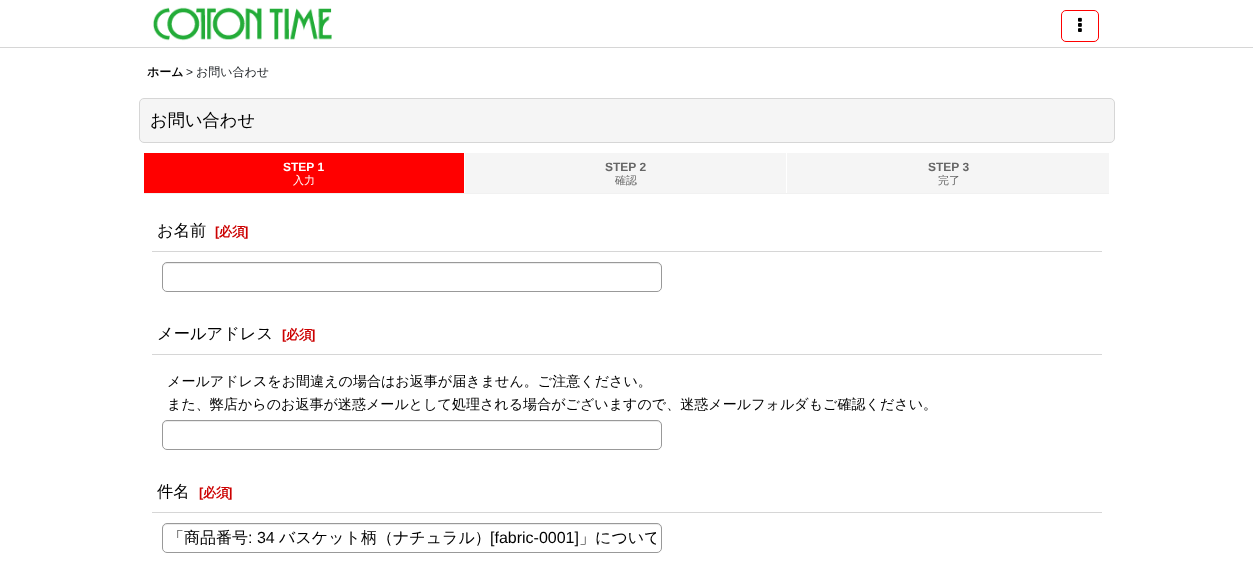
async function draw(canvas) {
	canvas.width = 1253;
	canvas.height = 580;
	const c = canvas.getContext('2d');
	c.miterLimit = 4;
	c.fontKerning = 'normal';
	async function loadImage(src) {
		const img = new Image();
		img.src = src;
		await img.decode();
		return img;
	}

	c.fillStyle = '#fff';
	c.fillRect(0, 0, 1253, 580);
	c.fillStyle = '#d6d6d6';
	c.fillRect(0, 47, 1253, 1);
	c.drawImage(await loadImage('img1.png'), 153, 7, 179, 34);
	c.beginPath();
	c.roundRect(1061.5, 10.5, 37, 31, 4.5);
	c.strokeStyle = '#f00';
	c.stroke();
	c.drawImage(await loadImage('img2.png'), 1078, 17, 4, 15);
	c.font = 'bold 12px WenQuanYi Zen Hei';
	c.fillStyle = '#000';
	c.fillText('ホーム', 147, 76);
	c.font = '12px Liberation Sans';
	c.fillStyle = '#212529';
	c.fillText('>', 186, 76);
	c.font = '500 12px WenQuanYi Zen Hei';
	c.fillText('お問い合わせ', 196, 76);
	c.fillStyle = '#f5f5f5';
	c.beginPath();
	c.roundRect(139.5, 98.5, 975, 44, 4.5);
	c.fill();
	c.strokeStyle = '#d6d6d6';
	c.stroke();
	c.font = '500 17.25px WenQuanYi Zen Hei';
	c.fillStyle = '#000';
	c.fillText('お問い合わせ', 150, 126);
	c.fillStyle = '#f00';
	c.fillRect(144, 153, 320, 40);
	c.fillStyle = '#f1f1f1';
	c.fillRect(144, 193, 965, 1);
	c.font = 'bold 12px Liberation Sans';
	c.fillStyle = '#fff';
	c.fillText('STEP 1', 283, 171);
	c.font = '500 11px WenQuanYi Zen Hei';
	c.fillText('入力', 293, 184);
	c.fillStyle = '#f5f5f5';
	c.fillRect(465, 153, 321, 40);
	c.font = 'bold 12px Liberation Sans';
	c.fillStyle = '#666';
	c.fillText('STEP 2', 605, 171);
	c.font = '500 11px WenQuanYi Zen Hei';
	c.fillText('確認', 615, 184);
	c.fillStyle = '#f5f5f5';
	c.fillRect(787, 153, 322, 40);
	c.font = 'bold 12px Liberation Sans';
	c.fillStyle = '#666';
	c.fillText('STEP 3', 928, 171);
	c.font = '500 11px WenQuanYi Zen Hei';
	c.fillText('完了', 938, 184);
	c.fillStyle = '#d6d6d6';
	c.fillRect(152, 251, 950, 1);
	c.font = '500 16.25px WenQuanYi Zen Hei';
	c.fillStyle = '#000';
	c.fillText('お名前', 157, 236);
	c.font = 'bold 13px Liberation Sans';
	c.fillStyle = '#c00';
	c.fillText('[', 215, 236);
	c.font = 'bold 13px WenQuanYi Zen Hei';
	c.fillText('必須', 219, 236);
	c.font = 'bold 13px Liberation Sans';
	c.fillText(']', 244, 236);
	c.fillStyle = '#ececec';
	c.beginPath();
	c.moveTo(167, 264);
	c.lineTo(657, 264);
	c.bezierCurveTo(659, 264, 661, 266, 661, 268);
	c.bezierCurveTo(661, 265, 660, 263, 657, 263);
	c.lineTo(167, 263);
	c.bezierCurveTo(164, 263, 163, 265, 163, 268);
	c.bezierCurveTo(163, 266, 165, 264, 167, 264);
	c.closePath();
	c.fill();
	c.beginPath();
	c.roundRect(162.5, 262.5, 499, 29, 4.5);
	c.strokeStyle = '#999';
	c.stroke();
	c.fillStyle = '#d6d6d6';
	c.fillRect(152, 354, 950, 1);
	c.font = '500 16.25px WenQuanYi Zen Hei';
	c.fillStyle = '#000';
	c.fillText('メールアドレス', 157, 339);
	c.font = 'bold 13px Liberation Sans';
	c.fillStyle = '#c00';
	c.fillText('[', 282, 339);
	c.font = 'bold 13px WenQuanYi Zen Hei';
	c.fillText('必須', 286, 339);
	c.font = 'bold 13px Liberation Sans';
	c.fillText(']', 311, 339);
	c.font = '500 14.05px WenQuanYi Zen Hei';
	c.fillStyle = '#000';
	c.fillText('メールアドレスをお間違えの場合はお返事が届きません。ご注意ください。', 167, 386);
	c.fillText('また、弊店からのお返事が迷惑メールとして処理される場合がございますので、迷惑メールフォルダもご確認ください。', 167, 409);
	c.fillStyle = '#ececec';
	c.beginPath();
	c.moveTo(167, 422);
	c.lineTo(657, 422);
	c.bezierCurveTo(659, 422, 661, 424, 661, 426);
	c.bezierCurveTo(661, 423, 660, 421, 657, 421);
	c.lineTo(167, 421);
	c.bezierCurveTo(164, 421, 163, 423, 163, 426);
	c.bezierCurveTo(163, 424, 165, 422, 167, 422);
	c.closePath();
	c.fill();
	c.beginPath();
	c.roundRect(162.5, 420.5, 499, 29, 4.5);
	c.stroke();
	c.fillStyle = '#d6d6d6';
	c.fillRect(152, 512, 950, 1);
	c.font = '500 16.25px WenQuanYi Zen Hei';
	c.fillStyle = '#000';
	c.fillText('件名', 157, 497);
	c.font = 'bold 13px Liberation Sans';
	c.fillStyle = '#c00';
	c.fillText('[', 199, 497);
	c.font = 'bold 13px WenQuanYi Zen Hei';
	c.fillText('必須', 203, 497);
	c.font = 'bold 13px Liberation Sans';
	c.fillText(']', 228, 497);
	c.fillStyle = '#ececec';
	c.beginPath();
	c.moveTo(167, 525);
	c.lineTo(657, 525);
	c.bezierCurveTo(659, 525, 661, 527, 661, 529);
	c.bezierCurveTo(661, 526, 660, 524, 657, 524);
	c.lineTo(167, 524);
	c.bezierCurveTo(164, 524, 163, 526, 163, 529);
	c.bezierCurveTo(163, 527, 165, 525, 167, 525);
	c.closePath();
	c.fill();
	c.beginPath();
	c.roundRect(162.5, 523.5, 499, 29, 4.5);
	c.stroke();
	c.font = '500 16px WenQuanYi Zen Hei';
	c.fillStyle = '#000';
	c.fillText('「商品番号', 168, 543);
	c.font = '16px Liberation Sans';
	c.fillText(': 34', 248, 543);
	c.font = '500 16px WenQuanYi Zen Hei';
	c.fillText('バスケット柄（ナチュラル）', 279, 543);
	c.font = '16px Liberation Sans';
	c.fillText('[fabric-0001]', 490, 543);
	c.save();
	c.beginPath();
	c.rect(168, 528, 488, 21);
	c.clip();
	c.font = '500 16px WenQuanYi Zen Hei';
	c.fillText('」について', 579, 543);
	c.restore();
}

draw(document.querySelector('canvas'));
